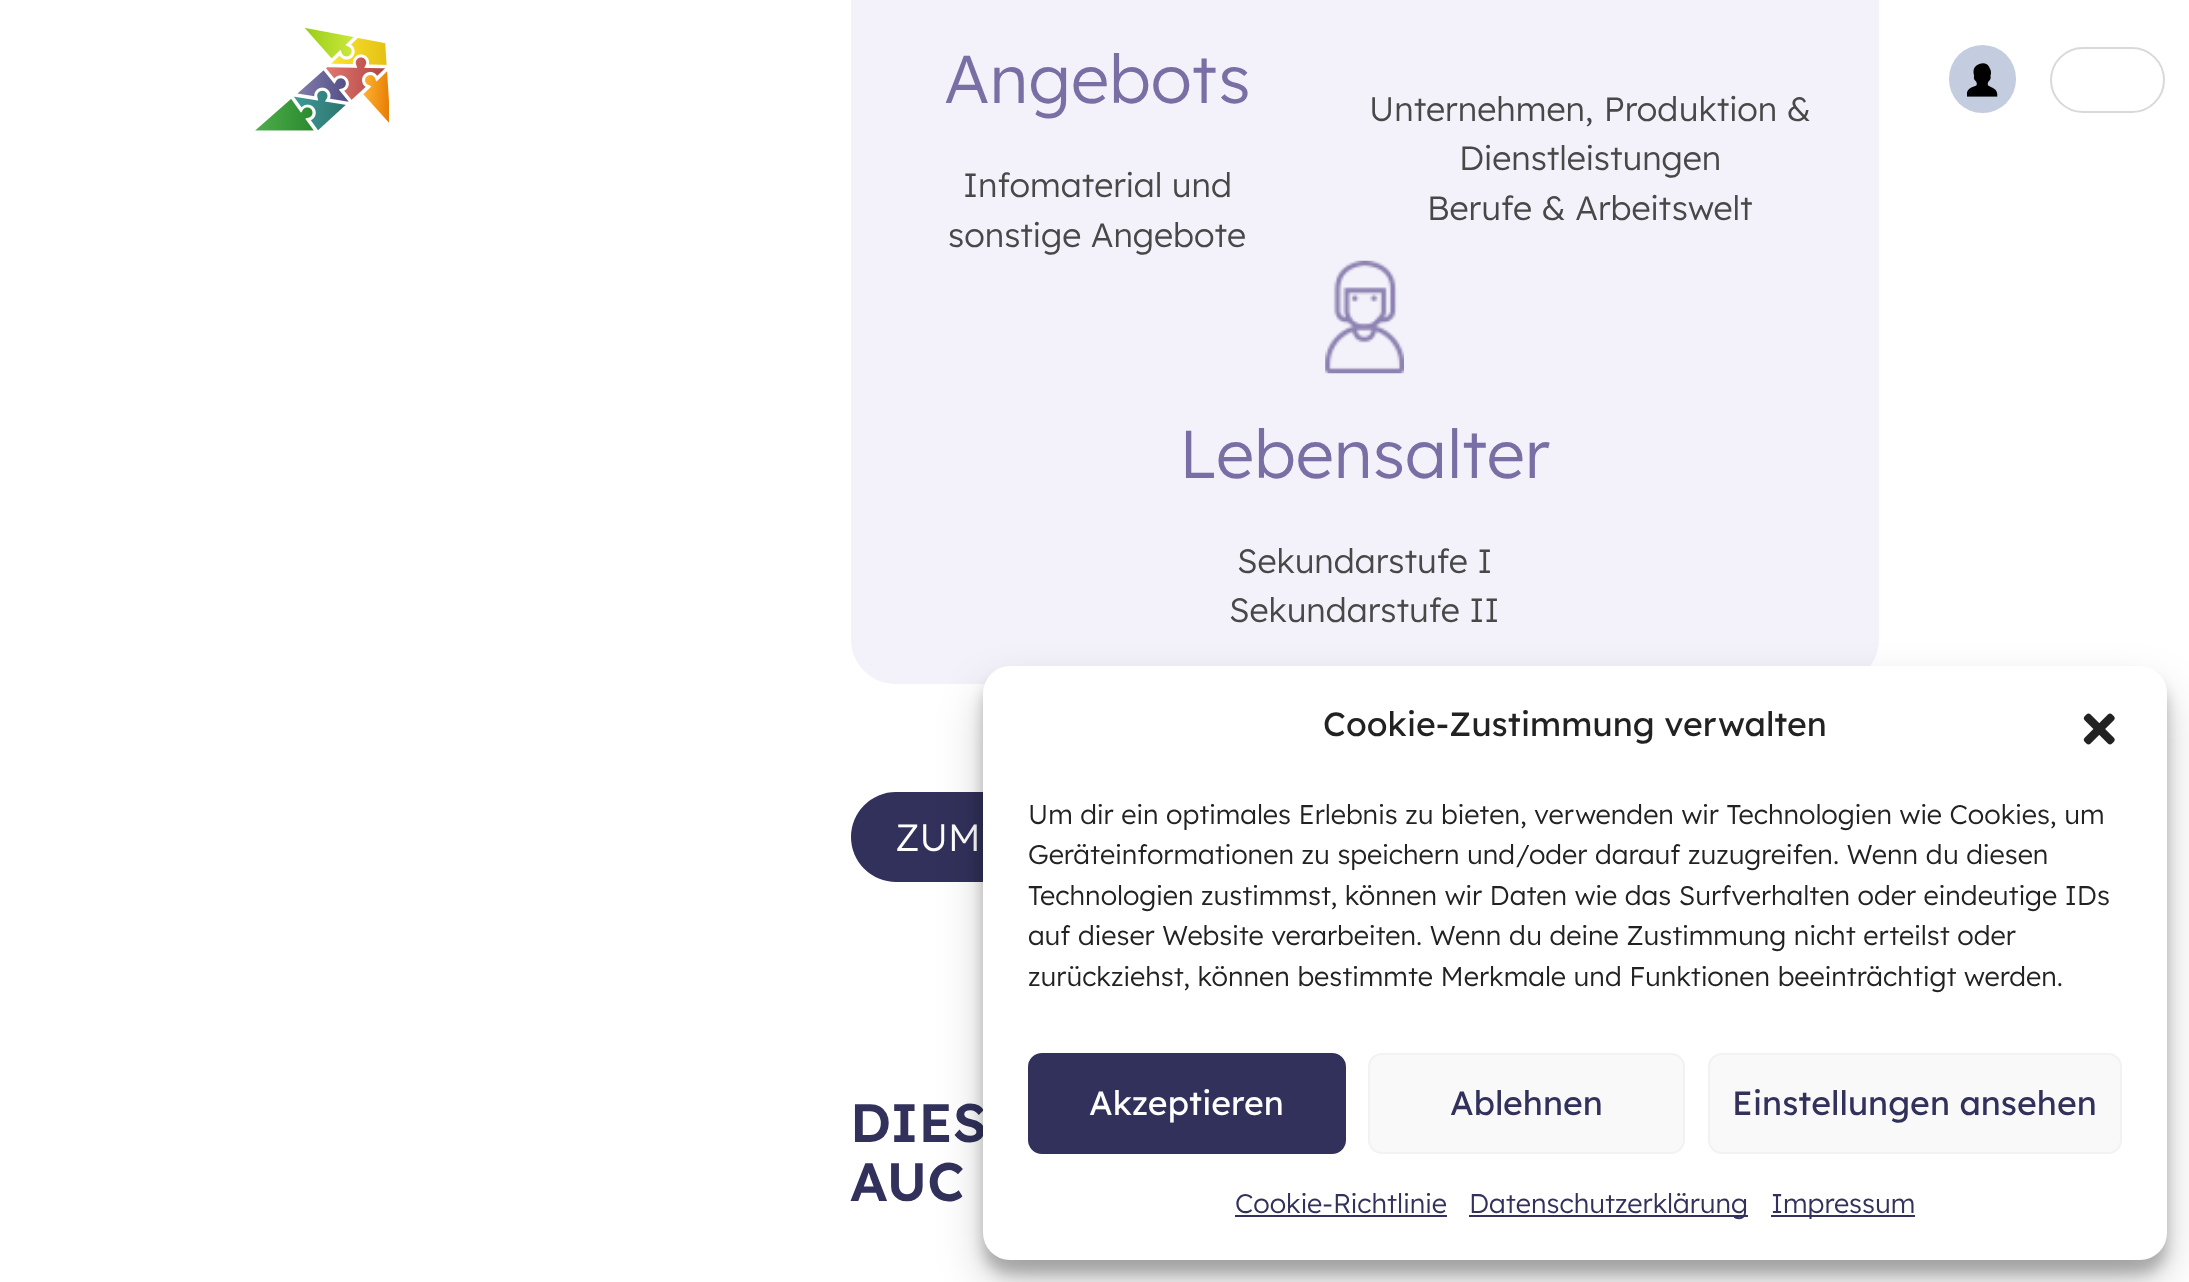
async function draw(canvas) {
	canvas.width = 2189;
	canvas.height = 1282;
	const c = canvas.getContext('2d');
	c.miterLimit = 4;
	c.fontKerning = 'normal';
	async function loadImage(src) {
		const img = new Image();
		img.src = src;
		await img.decode();
		return img;
	}

	c.fillStyle = '#fff';
	c.fillRect(0, 0, 2189, 1282);
	c.drawImage(await loadImage('img1.png'), 255, 27, 134, 104);
	c.fillStyle = '#c3cddf';
	c.beginPath();
	c.roundRect(1949, 45, 67, 68, 33.5);
	c.fill();
	c.drawImage(await loadImage('img2.png'), 1967, 63, 31, 34);
	c.beginPath();
	c.roundRect(2051, 48, 113, 64, 32);
	c.strokeStyle = '#d9d9d9';
	c.lineWidth = 2;
	c.stroke();
	c.fillStyle = '#f3f1f9';
	c.beginPath();
	c.roundRect(852, -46, 1026, 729, 44);
	c.fill();
	c.strokeStyle = '#f3f1f9';
	c.stroke();
	c.font = '67.5px Lexend';
	c.fillStyle = '#796fa5';
	c.fillText('Angebots', 944, 103);
	c.font = '33.75px Lexend';
	c.fillStyle = '#484848';
	for (const [text, x, y] of [
		['Infomaterial und', 963, 197],
		['sonstige Angebote', 948, 247],
		['Unternehmen‚ Produktion &', 1369, 121],
		['Dienstleistungen', 1459, 170],
		['Berufe & Arbeitswelt', 1427, 220],
	]) {
		c.fillText(text, x, y);
	}
	c.drawImage(await loadImage('img3.png'), 1325, 260, 79, 114);
	c.font = '67.5px Lexend';
	c.fillStyle = '#796fa5';
	c.fillText('Lebensalter', 1179, 478);
	c.font = '33.75px Lexend';
	c.fillStyle = '#484848';
	c.fillText('Sekundarstufe I', 1237, 573);
	c.fillText('Sekundarstufe II', 1229, 622);
	c.fillStyle = '#31315b';
	c.beginPath();
	c.roundRect(851, 792, 369, 90, 45);
	c.fill();
	c.font = '38px Lexend';
	c.fillStyle = '#fff';
	c.fillText('ZUM', 895, 851);
	c.font = '600 54px Lexend';
	c.fillStyle = '#31315b';
	c.fillText('DIES', 850, 1142);
	c.fillText('AUC', 850, 1201);
	c.fillStyle = '#0000003b';
	c.filter = 'blur(7px)';
	c.beginPath();
	c.roundRect(983, 680, 1184, 594, 27);
	c.fill();
	c.filter = 'none';
	c.fillStyle = '#00000030';
	c.filter = 'blur(22.5px)';
	c.beginPath();
	c.roundRect(983, 689, 1184, 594, 27);
	c.fill();
	c.filter = 'none';
	c.fillStyle = '#fff';
	c.beginPath();
	c.roundRect(983, 666, 1184, 594, 27);
	c.fill();
	c.font = '500 33.75px Lexend';
	c.fillStyle = '#222';
	c.fillText('Cookie-Zustimmung verwalten', 1323, 736);
	c.drawImage(await loadImage('img4.png'), 2083, 713, 32, 32);
	c.font = '27px Lexend';
	for (const [text, x, y] of [
		['Um dir ein optimales Erlebnis zu bieten, verwenden wir Technologien wie Cookies, um', 1028, 824],
		['Geräteinformationen zu speichern und/oder darauf zuzugreifen. Wenn du diesen', 1028, 864],
		['Technologien zustimmst, können wir Daten wie das Surfverhalten oder eindeutige IDs', 1028, 905],
		['auf dieser Website verarbeiten. Wenn du deine Zustimmung nicht erteilst oder', 1028, 945],
		['zurückziehst, können bestimmte Merkmale und Funktionen beeinträchtigt werden.', 1028, 986],
	]) {
		c.fillText(text, x, y);
	}
	c.fillStyle = '#31315b';
	c.beginPath();
	c.roundRect(1029, 1054, 316, 99, 13);
	c.fill();
	c.strokeStyle = '#31315b';
	c.stroke();
	c.font = '500 33.75px Lexend';
	c.fillStyle = '#fff';
	c.fillText('Akzeptieren', 1089, 1115);
	c.fillStyle = '#f9f9f9';
	c.beginPath();
	c.roundRect(1369, 1054, 315, 99, 13);
	c.fill();
	c.strokeStyle = '#f2f2f2';
	c.stroke();
	c.fillStyle = '#31315b';
	c.fillText('Ablehnen', 1450, 1115);
	c.fillStyle = '#f9f9f9';
	c.beginPath();
	c.roundRect(1709, 1054, 412, 99, 13);
	c.fill();
	c.stroke();
	c.fillStyle = '#31315b';
	c.fillText('Einstellungen ansehen', 1732, 1115);
	c.font = '27px Lexend';
	c.fillText('Cookie-Richtlinie', 1235, 1213);
	c.fillRect(1235, 1215, 212, 2);
	c.fillRect(1469, 1215, 279, 2);
	c.fillText('Datenschutzerklärung', 1469, 1213);
	c.fillRect(1771, 1215, 144, 2);
	c.fillText('Impressum', 1771, 1213);
}

draw(document.querySelector('canvas'));
